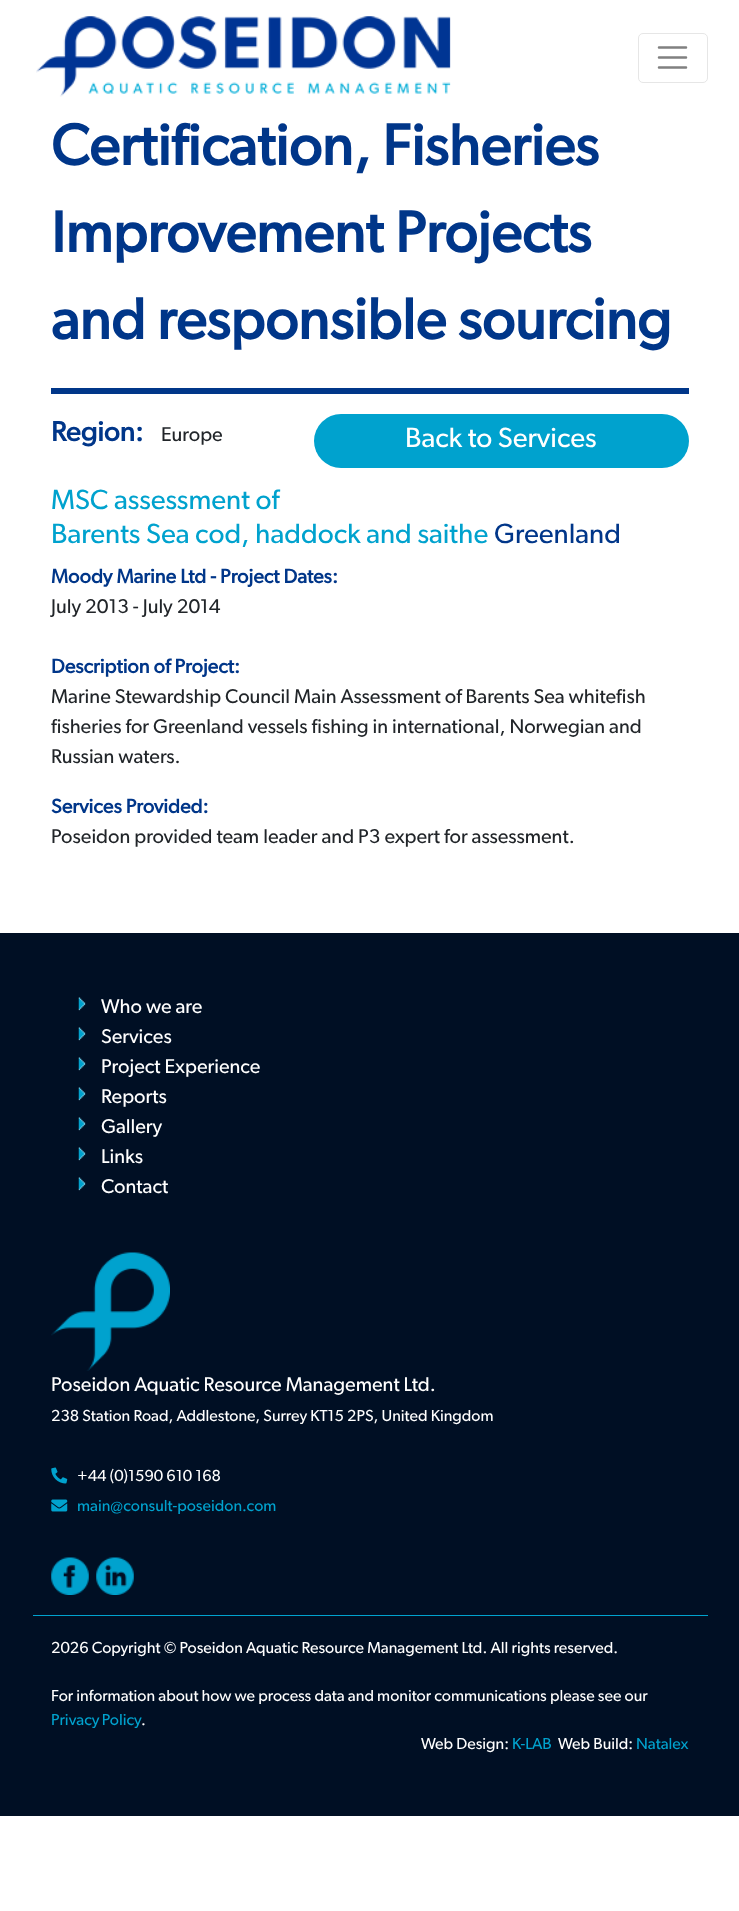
async function draw(canvas) {
	canvas.width = 739;
	canvas.height = 1911;
	const c = canvas.getContext('2d');
	c.miterLimit = 4;
	c.fontKerning = 'normal';
	async function loadImage(src) {
		const img = new Image();
		img.src = src;
		await img.decode();
		return img;
	}

	c.fillStyle = '#fff';
	c.fillRect(0, 0, 739, 1911);
	c.drawImage(await loadImage('img1.png'), 36, 16, 415, 81);
	c.beginPath();
	c.roundRect(638.5, 33.5, 69, 49, 4.5);
	c.strokeStyle = '#e6e6e6';
	c.stroke();
	c.beginPath();
	c.moveTo(659, 47.5);
	c.lineTo(686, 47.5);
	c.moveTo(659, 57.5);
	c.lineTo(686, 57.5);
	c.moveTo(659, 67.5);
	c.lineTo(686, 67.5);
	c.strokeStyle = '#808080';
	c.lineWidth = 2.5;
	c.lineCap = 'round';
	c.stroke();
	c.font = 'bold 58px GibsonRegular';
	c.fillStyle = '#003689';
	for (const [text, x, y] of [
		['Certification, Fisheries', 51, 165],
		['Improvement Projects', 51, 252],
		['and responsible sourcing', 51, 339],
	]) {
		c.fillText(text, x, y);
	}
	c.fillRect(51, 388, 638, 6);
	c.font = 'bold 28px GibsonRegular';
	c.fillText('Region:', 51, 441);
	c.font = '20px GibsonRegular';
	c.fillStyle = '#212529';
	c.fillText('Europe', 161, 441);
	c.fillStyle = '#00a2ce';
	c.beginPath();
	c.roundRect(314, 414, 375, 54, 27);
	c.fill();
	c.font = '28px GibsonRegular';
	c.fillStyle = '#fff';
	c.fillText('Back to Services', 405, 447);
	c.fillStyle = '#00a2ce';
	c.fillText('MSC assessment of', 51, 509);
	c.fillText('Barents Sea cod, haddock and saithe', 51, 543);
	c.fillStyle = '#003689';
	c.fillText('Greenland', 494, 543);
	c.font = 'bold 20px GibsonRegular';
	c.fillText('Moody Marine Ltd - Project Dates:', 51, 583);
	c.font = '20px GibsonRegular';
	c.fillStyle = '#212529';
	c.fillText('July 2013 - July 2014', 51, 613);
	c.font = 'bold 20px GibsonRegular';
	c.fillStyle = '#003689';
	c.fillText('Description of Project:', 51, 673);
	c.font = '20px GibsonRegular';
	c.fillStyle = '#212529';
	for (const [text, x, y] of [
		['Marine Stewardship Council Main Assessment of Barents Sea whitefish', 51, 703],
		['fisheries for Greenland vessels fishing in international, Norwegian and', 51, 733],
		['Russian waters.', 51, 763],
	]) {
		c.fillText(text, x, y);
	}
	c.font = 'bold 20px GibsonRegular';
	c.fillStyle = '#003689';
	c.fillText('Services Provided:', 51, 813);
	c.font = '20px GibsonRegular';
	c.fillStyle = '#212529';
	c.fillText('Poseidon provided team leader and P3 expert for assessment.', 51, 843);
	c.fillStyle = '#000f24';
	c.fillRect(0, 933, 739, 883);
	c.drawImage(await loadImage('img2.png'), 78, 997, 8, 14);
	c.fillStyle = '#fff';
	c.fillText('Who we are', 101, 1013);
	c.drawImage(await loadImage('img2.png'), 78, 1027, 8, 14);
	c.fillText('Services', 101, 1043);
	c.drawImage(await loadImage('img2.png'), 78, 1057, 8, 14);
	c.fillText('Project Experience', 101, 1073);
	c.drawImage(await loadImage('img2.png'), 78, 1087, 8, 14);
	c.fillText('Reports', 101, 1103);
	c.drawImage(await loadImage('img2.png'), 78, 1117, 8, 14);
	c.fillText('Gallery', 101, 1133);
	c.drawImage(await loadImage('img2.png'), 78, 1147, 8, 14);
	c.fillText('Links', 101, 1163);
	c.drawImage(await loadImage('img2.png'), 78, 1177, 8, 14);
	c.fillText('Contact', 101, 1193);
	c.drawImage(await loadImage('img3.png'), 51, 1252, 119, 119);
	c.fillText('Poseidon Aquatic Resource Management Ltd.', 51, 1391);
	c.font = '16px GibsonRegular';
	c.fillText('238 Station Road, Addlestone, Surrey KT15 2PS, United Kingdom', 51, 1421);
	c.drawImage(await loadImage('img4.png'), 51, 1467, 17, 17);
	c.fillText('+44 (0)1590 610 168', 77, 1481);
	c.drawImage(await loadImage('img5.png'), 51, 1499, 17, 13);
	c.fillStyle = '#00a2ce';
	c.fillText('main@consult-poseidon.com', 77, 1511);
	c.drawImage(await loadImage('img6.png'), 51, 1557, 38, 38);
	c.drawImage(await loadImage('img7.png'), 96, 1557, 38, 38);
	c.fillRect(33, 1615, 675, 1);
	c.fillStyle = '#fff';
	c.fillText('2026 Copyright © Poseidon Aquatic Resource Management Ltd. All rights reserved.', 51, 1653);
	c.fillText('For information about how we process data and monitor communications please see our', 51, 1701);
	c.wordSpacing = '-1px';
	c.fillStyle = '#00a2ce';
	c.fillText('Privacy Policy', 51, 1725);
	c.wordSpacing = '0px';
	c.fillStyle = '#fff';
	c.fillText('.', 141, 1725);
	c.fillText('Web Design:', 421, 1749);
	c.fillStyle = '#00a2ce';
	c.fillText('K-LAB', 512, 1749);
	c.fillStyle = '#fff';
	c.fillText('Web Build:', 558, 1749);
	c.fillStyle = '#00a2ce';
	c.fillText('Natalex', 636, 1749);
}

draw(document.querySelector('canvas'));
